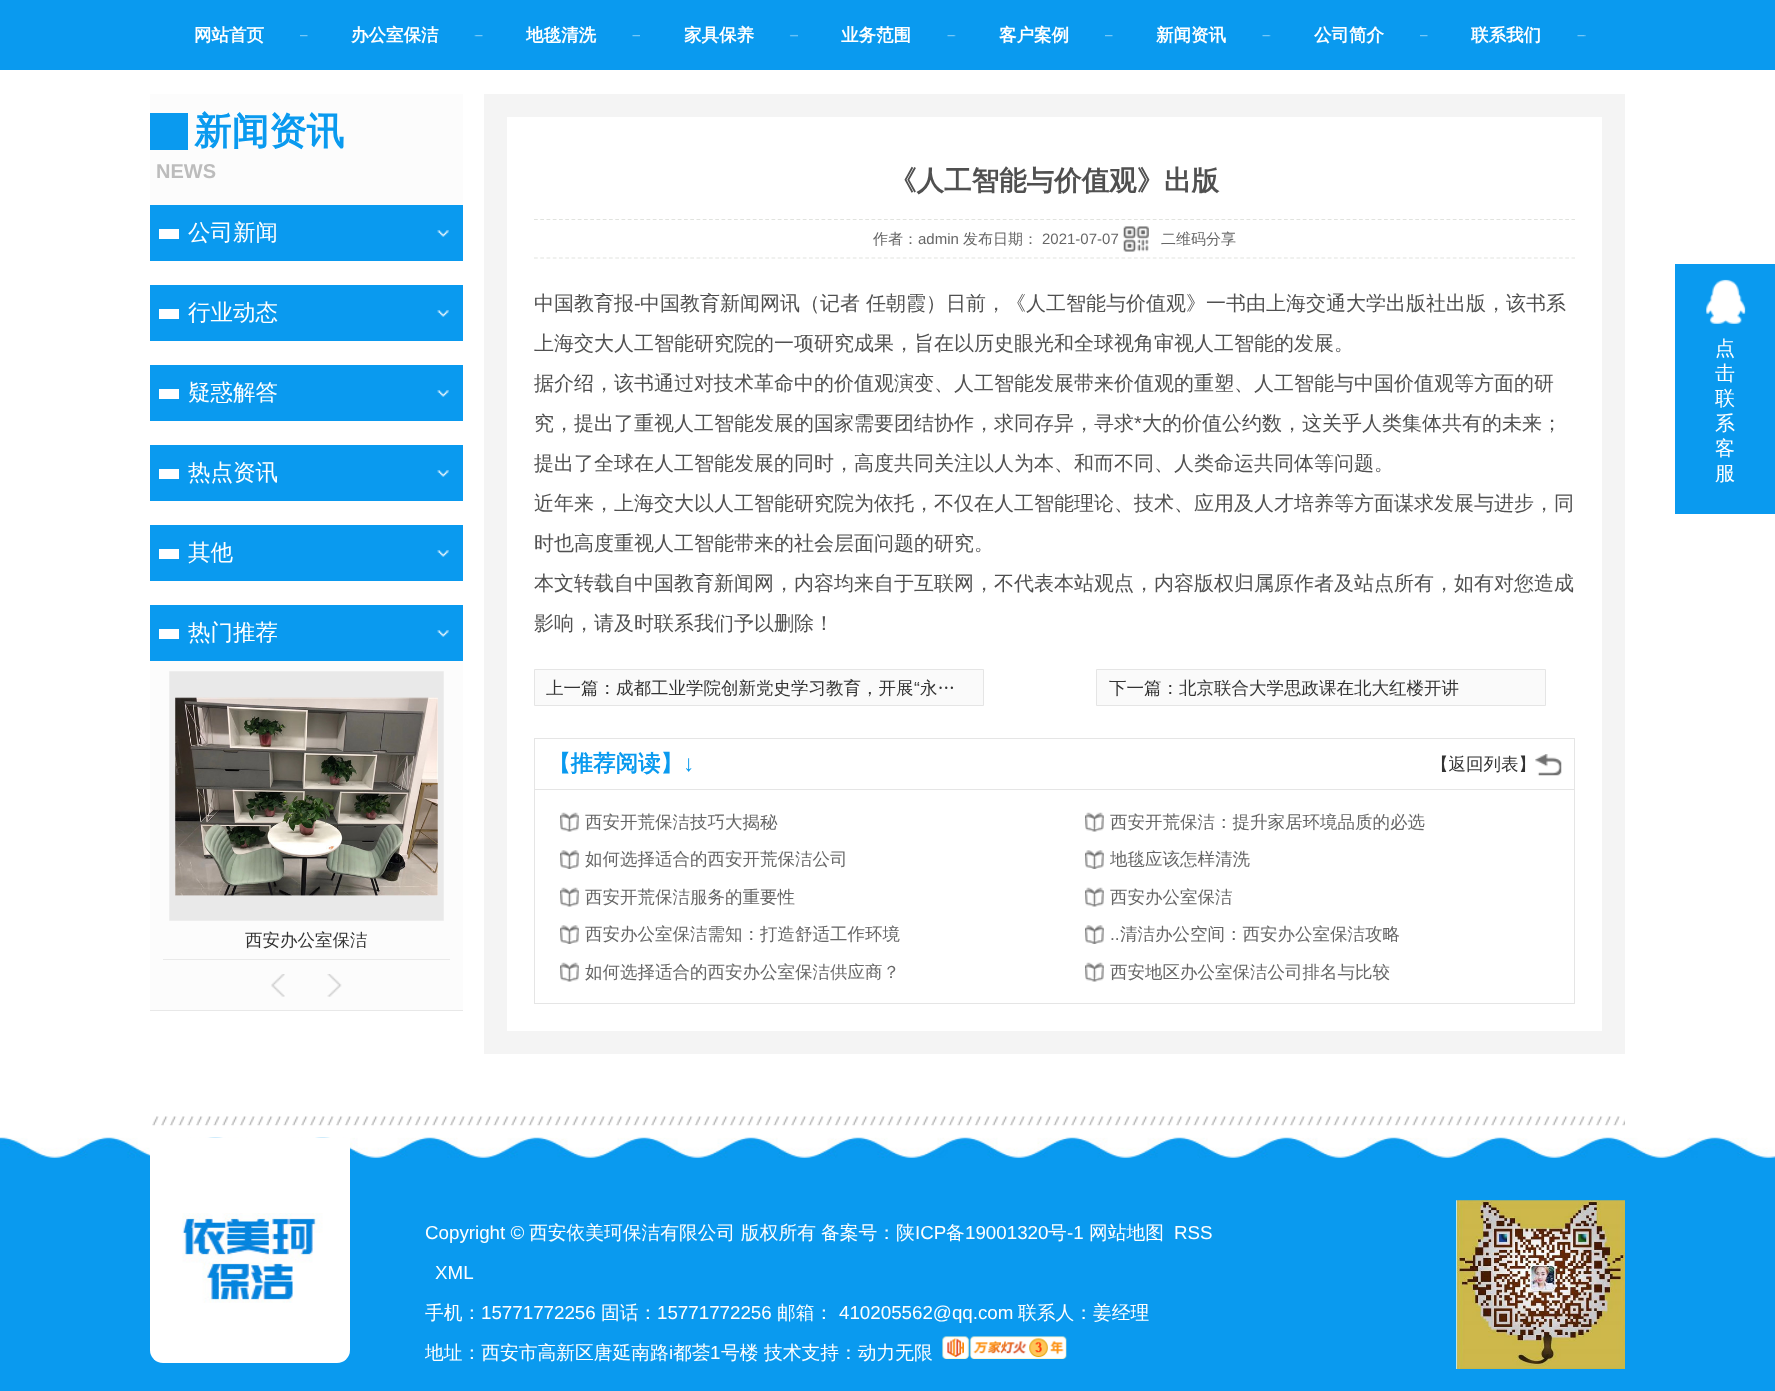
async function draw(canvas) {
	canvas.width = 1775;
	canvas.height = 1391;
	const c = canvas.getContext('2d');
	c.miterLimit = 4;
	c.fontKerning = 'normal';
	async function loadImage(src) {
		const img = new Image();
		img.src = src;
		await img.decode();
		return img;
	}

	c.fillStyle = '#fff';
	c.fillRect(0, 0, 1775, 1391);
	c.fillStyle = '#0a9aef';
	c.fillRect(0, 0, 1775, 70);
	c.drawImage(await loadImage('img1.png'), 300, 35, 8, 2);
	c.font = 'bold 17.5px WenQuanYi Zen Hei';
	c.fillStyle = '#fff';
	c.fillText('网站首页', 194, 41);
	c.drawImage(await loadImage('img2.png'), 474, 35, 9, 2);
	c.fillText('办公室保洁', 351, 41);
	c.drawImage(await loadImage('img3.png'), 632, 35, 8, 2);
	c.fillText('地毯清洗', 526, 41);
	c.drawImage(await loadImage('img4.png'), 789, 34, 9, 3);
	c.fillText('家具保养', 684, 41);
	c.drawImage(await loadImage('img5.png'), 947, 35, 9, 2);
	c.fillText('业务范围', 841, 41);
	c.drawImage(await loadImage('img1.png'), 1105, 35, 8, 2);
	c.fillText('客户案例', 999, 41);
	c.drawImage(await loadImage('img5.png'), 1262, 35, 9, 2);
	c.fillText('新闻资讯', 1156, 41);
	c.drawImage(await loadImage('img1.png'), 1420, 35, 8, 2);
	c.fillText('公司简介', 1314, 41);
	c.drawImage(await loadImage('img6.png'), 1577, 35, 9, 2);
	c.fillText('联系我们', 1471, 41);
	c.fillStyle = '#fcfcfc';
	c.fillRect(150, 94, 313, 111);
	c.fillStyle = '#0a9aef';
	c.fillRect(150, 113, 38, 37);
	c.font = 'bold 37.5px WenQuanYi Zen Hei';
	c.fillText('新闻资讯', 194, 144);
	c.font = 'bold 20px Liberation Sans';
	c.fillStyle = '#bcbcbc';
	c.fillText('NEWS', 156, 178);
	c.fillStyle = '#0a9aef';
	c.fillRect(150, 205, 313, 56);
	c.drawImage(await loadImage('img7.png'), 437, 230, 12, 7);
	c.fillStyle = '#fff';
	c.fillRect(159, 229, 20, 10);
	c.font = '500 22.5px WenQuanYi Zen Hei';
	c.fillText('公司新闻', 188, 240);
	c.fillStyle = '#0a9aef';
	c.fillRect(150, 285, 313, 56);
	c.drawImage(await loadImage('img7.png'), 437, 310, 12, 7);
	c.fillStyle = '#fff';
	c.fillRect(159, 309, 20, 10);
	c.fillText('行业动态', 188, 320);
	c.fillStyle = '#0a9aef';
	c.fillRect(150, 365, 313, 56);
	c.drawImage(await loadImage('img7.png'), 437, 390, 12, 7);
	c.fillStyle = '#fff';
	c.fillRect(159, 389, 20, 10);
	c.fillText('疑惑解答', 188, 400);
	c.fillStyle = '#0a9aef';
	c.fillRect(150, 445, 313, 56);
	c.drawImage(await loadImage('img7.png'), 437, 470, 12, 7);
	c.fillStyle = '#fff';
	c.fillRect(159, 469, 20, 10);
	c.fillText('热点资讯', 188, 480);
	c.fillStyle = '#0a9aef';
	c.fillRect(150, 525, 313, 56);
	c.drawImage(await loadImage('img7.png'), 437, 550, 12, 7);
	c.fillStyle = '#fff';
	c.fillRect(159, 549, 20, 10);
	c.fillText('其他', 188, 560);
	for (const [x, y, w, h, color] of [
		[150, 661, 313, 349, '#fcfcfc'],
		[150, 1010, 313, 1, '#e8e8e8'],
		[150, 605, 313, 56, '#0a9aef'],
	]) {
		c.fillStyle = color;
		c.fillRect(x, y, w, h);
	}
	c.drawImage(await loadImage('img7.png'), 437, 630, 12, 7);
	c.fillStyle = '#fff';
	c.fillRect(159, 629, 20, 10);
	c.fillText('热门推荐', 188, 640);
	c.fillStyle = '#e9e9e9';
	c.fillRect(163, 959, 287, 1);
	c.beginPath();
	c.rect(169.5, 671.5, 274, 249);
	c.fill();
	c.strokeStyle = '#eee';
	c.stroke();
	c.drawImage(await loadImage('img8.png'), 175, 697, 263, 199);
	c.drawImage(await loadImage('img9.png'), 175, 697, 263, 199);
	c.font = '500 17.5px WenQuanYi Zen Hei';
	c.fillStyle = '#333';
	c.fillText('西安办公室保洁', 245, 946);
	c.drawImage(await loadImage('img10.png'), 271, 974, 14, 23);
	c.drawImage(await loadImage('img11.png'), 327, 974, 15, 23);
	c.strokeStyle = '#f4f4f4';
	c.lineWidth = 23;
	c.strokeRect(495.5, 105.5, 1118, 937);
	c.beginPath();
	c.moveTo(534, 219.5);
	c.lineTo(1575, 219.5);
	c.strokeStyle = '#e1e3df';
	c.lineWidth = 1.2;
	c.setLineDash([3.75, 2.5]);
	c.stroke();
	c.font = 'bold 27.5px WenQuanYi Zen Hei';
	c.fillStyle = '#505050';
	c.fillText('《人工智能与价值观》出版', 889, 190);
	c.beginPath();
	c.moveTo(534, 258);
	c.lineTo(1575, 258);
	c.stroke();
	c.font = '500 15px WenQuanYi Zen Hei';
	c.fillStyle = '#666';
	c.fillText('作者：', 873, 244);
	c.font = '15px Liberation Sans';
	c.fillText('admin', 918, 244);
	c.font = '500 15px WenQuanYi Zen Hei';
	c.fillText('发布日期：', 963, 244);
	c.font = '15px Liberation Sans';
	c.fillText('2021-07-07', 1042, 244);
	c.drawImage(await loadImage('img12.png'), 1123, 226, 26, 26);
	c.font = '500 15px WenQuanYi Zen Hei';
	c.fillText('二维码分享', 1161, 244);
	c.font = '500 20px WenQuanYi Zen Hei';
	c.fillStyle = '#505050';
	c.fillText('中国教育报', 534, 310);
	c.font = '20px Liberation Sans';
	c.fillText('-', 634, 310);
	c.font = '500 20px WenQuanYi Zen Hei';
	for (const [text, x, y] of [
		['中国教育新闻网讯（记者 任朝霞）日前，《人工智能与价值观》一书由上海交通大学出版社出版，该书系', 640, 310],
		['上海交大人工智能研究院的一项研究成果，旨在以历史眼光和全球视角审视人工智能的发展。', 534, 350],
		['据介绍，该书通过对技术革命中的价值观演变、人工智能发展带来价值观的重塑、人工智能与中国价值观等方面的研', 534, 390],
		['究，提出了重视人工智能发展的国家需要团结协作，求同存异，寻求', 534, 430],
	]) {
		c.fillText(text, x, y);
	}
	c.font = '20px Liberation Sans';
	c.fillText('*', 1134, 430);
	c.font = '500 20px WenQuanYi Zen Hei';
	for (const [text, x, y] of [
		['大的价值公约数，这关乎人类集体共有的未来；', 1142, 430],
		['提出了全球在人工智能发展的同时，高度共同关注以人为本、和而不同、人类命运共同体等问题。', 534, 470],
		['近年来，上海交大以人工智能研究院为依托，不仅在人工智能理论、技术、应用及人才培养等方面谋求发展与进步，同', 534, 510],
		['时也高度重视人工智能带来的社会层面问题的研究。', 534, 550],
		['本文转载自中国教育新闻网，内容均来自于互联网，不代表本站观点，内容版权归属原作者及站点所有，如有对您造成', 534, 590],
		['影响，请及时联系我们予以删除！', 534, 630],
	]) {
		c.fillText(text, x, y);
	}
	c.fillStyle = '#fafafa';
	c.beginPath();
	c.rect(534.5, 669.5, 449, 36);
	c.fill();
	c.strokeStyle = '#e5e5e5';
	c.lineWidth = 1;
	c.setLineDash([]);
	c.stroke();
	c.font = '500 17.5px WenQuanYi Zen Hei';
	c.fillStyle = '#333';
	c.fillText('上一篇：成都工业学院创新党史学习教育，开展', 546, 694);
	c.font = '17.5px Liberation Sans';
	c.fillText('“', 914, 694);
	c.font = '500 17.5px WenQuanYi Zen Hei';
	c.fillText('永…', 920, 694);
	c.fillStyle = '#fafafa';
	c.beginPath();
	c.rect(1096.5, 669.5, 449, 36);
	c.fill();
	c.stroke();
	c.fillStyle = '#333';
	c.fillText('下一篇：北京联合大学思政课在北大红楼开讲', 1109, 694);
	c.strokeRect(534.5, 738.5, 1040, 265);
	c.fillStyle = '#e5e5e5';
	c.fillRect(535, 789, 1039, 1);
	c.font = 'bold 22.5px WenQuanYi Zen Hei';
	c.fillStyle = '#0a9aef';
	c.fillText('【推荐阅读】', 548, 771);
	c.font = 'bold 22.5px Liberation Sans';
	c.fillText('↓', 683, 771);
	c.drawImage(await loadImage('img13.png'), 1535, 754, 27, 22);
	c.font = '500 17.5px WenQuanYi Zen Hei';
	c.fillStyle = '#333';
	c.fillText('【返回列表】', 1431, 770);
	c.drawImage(await loadImage('img14.png'), 560, 812, 19, 20);
	c.fillStyle = '#666';
	c.fillText('西安开荒保洁技巧大揭秘', 585, 828);
	c.drawImage(await loadImage('img15.png'), 1085, 812, 19, 20);
	c.fillText('西安开荒保洁：提升家居环境品质的必选', 1110, 828);
	c.drawImage(await loadImage('img16.png'), 560, 850, 19, 19);
	c.fillText('如何选择适合的西安开荒保洁公司', 585, 865);
	c.drawImage(await loadImage('img17.png'), 1085, 850, 19, 19);
	c.fillText('地毯应该怎样清洗', 1110, 865);
	c.drawImage(await loadImage('img14.png'), 560, 887, 19, 20);
	c.fillText('西安开荒保洁服务的重要性', 585, 903);
	c.drawImage(await loadImage('img15.png'), 1085, 887, 19, 20);
	c.fillText('西安办公室保洁', 1110, 903);
	c.drawImage(await loadImage('img16.png'), 560, 925, 19, 19);
	c.fillText('西安办公室保洁需知：打造舒适工作环境', 585, 940);
	c.drawImage(await loadImage('img17.png'), 1085, 925, 19, 19);
	c.font = '17.5px Liberation Sans';
	c.fillText('..', 1110, 940);
	c.font = '500 17.5px WenQuanYi Zen Hei';
	c.fillText('清洁办公空间：西安办公室保洁攻略', 1120, 940);
	c.drawImage(await loadImage('img14.png'), 560, 962, 19, 20);
	c.fillText('如何选择适合的西安办公室保洁供应商？', 585, 978);
	c.drawImage(await loadImage('img15.png'), 1085, 962, 19, 20);
	c.fillText('西安地区办公室保洁公司排名与比较', 1110, 978);
	c.drawImage(await loadImage('img18.png'), 152, 1116, 1473, 10);
	c.fillStyle = '#0a9aef';
	c.fillRect(1675, 264, 100, 250);
	c.drawImage(await loadImage('img19.png'), 1706, 279, 40, 45);
	c.font = '500 20px WenQuanYi Zen Hei';
	c.fillStyle = '#fff';
	for (const [text, x, y] of [
		['点', 1715, 355],
		['击', 1715, 380],
		['联', 1715, 405],
		['系', 1715, 430],
		['客', 1715, 455],
		['服', 1715, 480],
	]) {
		c.fillText(text, x, y);
	}
	c.fillStyle = '#0a9aef';
	c.fillRect(0, 1158, 1775, 233);
	c.drawImage(await loadImage('img20.png'), 0, 1137, 1775, 21);
	c.fillStyle = '#fff';
	c.beginPath();
	c.roundRect(150, 1138, 200, 225, [0, 0, 13, 13]);
	c.fill();
	c.drawImage(await loadImage('img21.png'), 182, 1213, 141, 90);
	c.font = '18.75px Liberation Sans';
	c.fillText('Copyright ©', 425, 1239);
	c.font = '500 18.75px WenQuanYi Zen Hei';
	for (const [text, x, y] of [
		['西安依美珂保洁有限公司', 529, 1239],
		['版权所有', 741, 1239],
		['备案号：陕', 821, 1239],
	]) {
		c.fillText(text, x, y);
	}
	c.font = '18.75px Liberation Sans';
	c.fillText('ICP', 915, 1239);
	c.font = '500 18.75px WenQuanYi Zen Hei';
	c.fillText('备', 946, 1239);
	c.font = '18.75px Liberation Sans';
	c.fillText('19001320', 965, 1239);
	c.font = '500 18.75px WenQuanYi Zen Hei';
	c.fillText('号', 1048, 1239);
	c.font = '18.75px Liberation Sans';
	c.fillText('-1', 1067, 1239);
	c.font = '500 18.75px WenQuanYi Zen Hei';
	c.fillText('网站地图', 1089, 1239);
	c.font = '18.75px Liberation Sans';
	c.fillText('RSS', 1174, 1239);
	c.fillText('XML', 435, 1279);
	c.font = '500 18.75px WenQuanYi Zen Hei';
	c.fillText('手机：', 425, 1319);
	c.font = '18.75px Liberation Sans';
	c.fillText('15771772256', 481, 1319);
	c.font = '500 18.75px WenQuanYi Zen Hei';
	c.fillText('固话：', 601, 1319);
	c.font = '18.75px Liberation Sans';
	c.fillText('15771772256', 657, 1319);
	c.font = '500 18.75px WenQuanYi Zen Hei';
	c.fillText('邮箱：', 777, 1319);
	c.font = '18.75px Liberation Sans';
	c.fillText('410205562@qq.com', 839, 1319);
	c.font = '500 18.75px WenQuanYi Zen Hei';
	c.fillText('联系人：姜经理', 1018, 1319);
	c.fillText('地址：西安市高新区唐延南路', 425, 1359);
	c.font = '18.75px Liberation Sans';
	c.fillText('i', 669, 1359);
	c.font = '500 18.75px WenQuanYi Zen Hei';
	c.fillText('都荟', 673, 1359);
	c.font = '18.75px Liberation Sans';
	c.fillText('1', 710, 1359);
	c.font = '500 18.75px WenQuanYi Zen Hei';
	c.fillText('号楼', 721, 1359);
	c.fillText('技术支持：动力无限', 764, 1359);
	c.drawImage(await loadImage('img22.png'), 942, 1336, 125, 23);
	c.drawImage(await loadImage('img23.png'), 1456, 1200, 169, 169);
}

draw(document.querySelector('canvas'));
